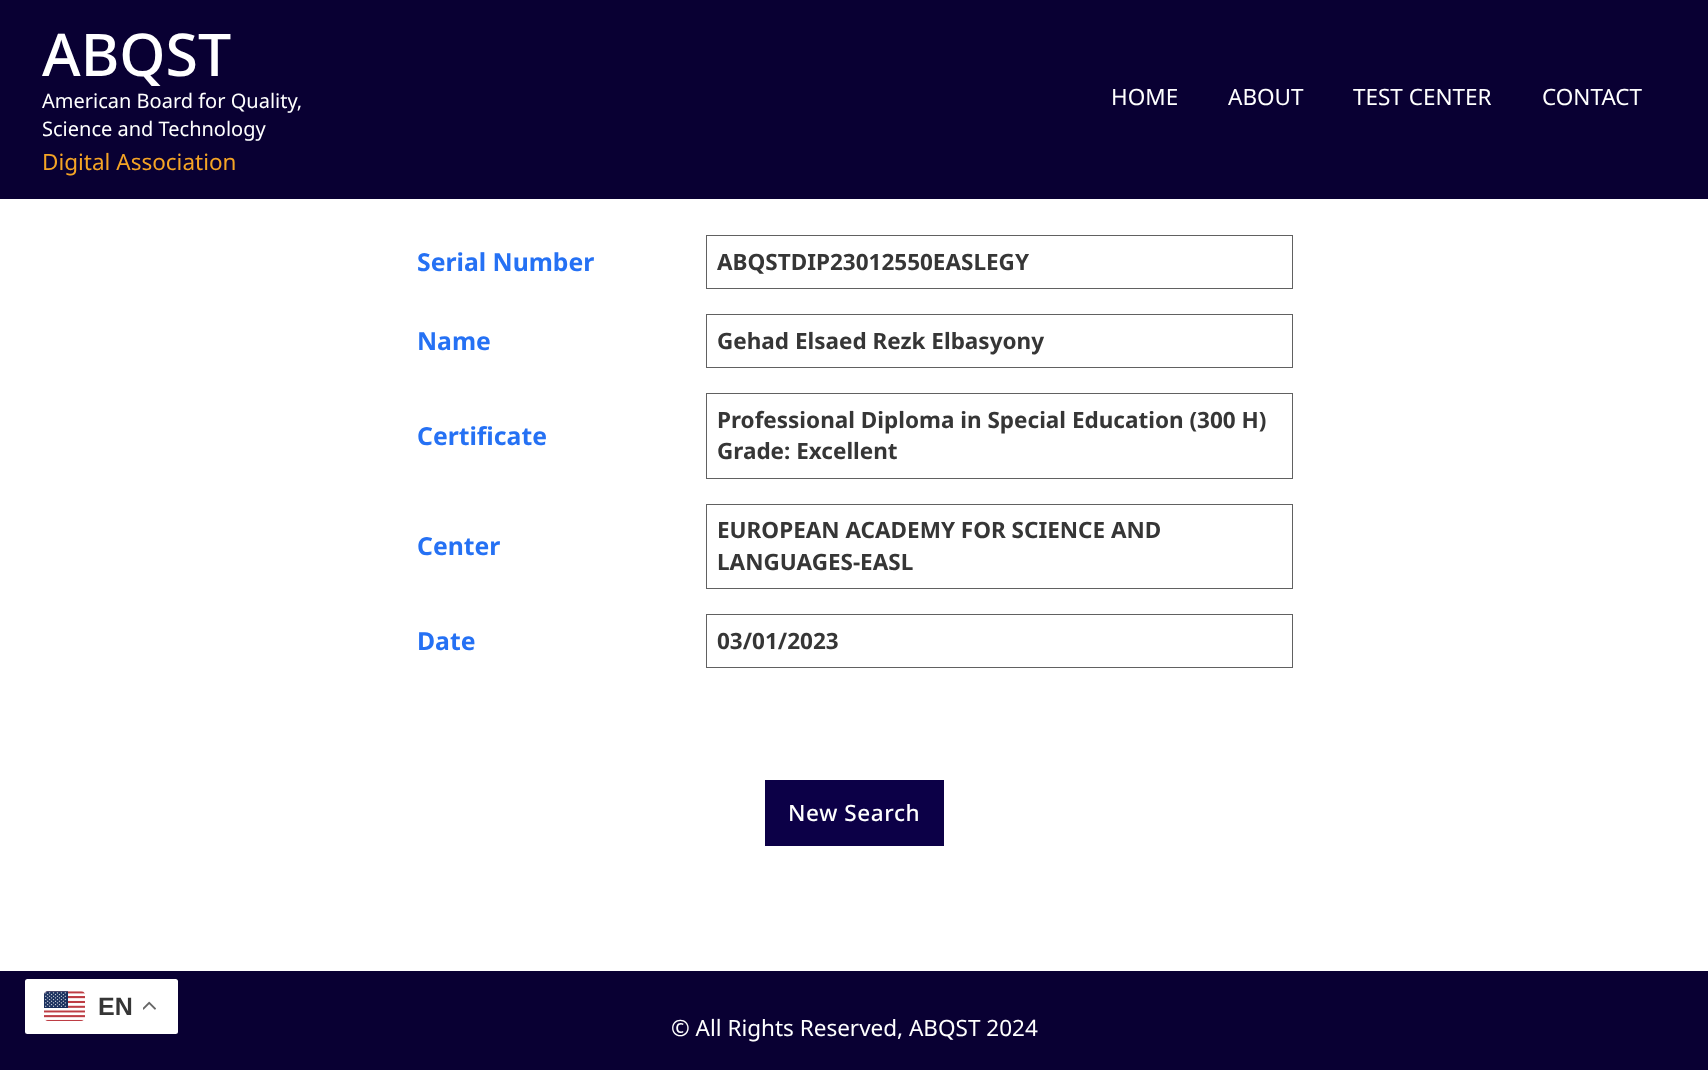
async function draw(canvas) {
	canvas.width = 1708;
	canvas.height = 1070;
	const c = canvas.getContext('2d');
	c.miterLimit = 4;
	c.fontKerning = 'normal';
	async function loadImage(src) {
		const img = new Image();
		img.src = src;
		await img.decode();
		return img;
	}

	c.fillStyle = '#fff';
	c.fillRect(0, 0, 1708, 1070);
	c.fillStyle = '#090033';
	c.fillRect(0, 0, 1708, 199);
	c.font = '500 59px Noto Sans';
	c.fillStyle = '#fff';
	c.fillText('ABQST', 42, 76);
	c.font = '20px Noto Sans';
	c.fillText('American Board for Quality,', 42, 108);
	c.fillText('Science and Technology', 42, 136);
	c.font = '22.5px Noto Sans';
	c.fillStyle = '#f5a425';
	c.fillText('Digital Association', 42, 170);
	c.fillStyle = '#fff';
	for (const [text, x, y] of [
		['HOME', 1111, 105],
		['ABOUT', 1228, 105],
		['TEST CENTER', 1353, 105],
		['CONTACT', 1542, 105],
	]) {
		c.fillText(text, x, y);
	}
	c.font = 'bold 24.75px Noto Sans';
	c.fillStyle = '#2571f4';
	c.fillText('Serial Number', 417, 271);
	c.strokeStyle = '#616161';
	c.strokeRect(706.5, 235.5, 586, 53);
	c.font = 'bold 22.5px Noto Sans';
	c.fillStyle = '#363636';
	c.fillText('ABQSTDIP23012550EASLEGY', 717, 270);
	c.font = 'bold 24.75px Noto Sans';
	c.fillStyle = '#2571f4';
	c.fillText('Name', 417, 350);
	c.strokeRect(706.5, 314.5, 586, 53);
	c.font = 'bold 22.5px Noto Sans';
	c.fillStyle = '#363636';
	c.fillText('Gehad Elsaed Rezk Elbasyony', 717, 349);
	c.font = 'bold 24.75px Noto Sans';
	c.fillStyle = '#2571f4';
	c.fillText('Certificate', 417, 445);
	c.strokeRect(706.5, 393.5, 586, 85);
	c.font = 'bold 22.5px Noto Sans';
	c.fillStyle = '#363636';
	c.fillText('Professional Diploma in Special Education (300 H)', 717, 428);
	c.fillText('Grade: Excellent', 717, 459);
	c.font = 'bold 24.75px Noto Sans';
	c.fillStyle = '#2571f4';
	c.fillText('Center', 417, 555);
	c.strokeRect(706.5, 504.5, 586, 84);
	c.font = 'bold 22.5px Noto Sans';
	c.fillStyle = '#363636';
	c.fillText('EUROPEAN ACADEMY FOR SCIENCE AND', 717, 538);
	c.fillText('LANGUAGES-EASL', 717, 570);
	c.font = 'bold 24.75px Noto Sans';
	c.fillStyle = '#2571f4';
	c.fillText('Date', 417, 650);
	c.strokeRect(706.5, 614.5, 586, 53);
	c.font = 'bold 22.5px Noto Sans';
	c.fillStyle = '#363636';
	c.fillText('03/01/2023', 717, 649);
	c.fillStyle = '#0c0047';
	c.fillRect(765, 780, 179, 66);
	c.letterSpacing = '0.6px';
	c.font = '500 22.5px Noto Sans';
	c.fillStyle = '#fff';
	c.fillText('New Search', 788, 821);
	c.fillStyle = '#090033';
	c.fillRect(0, 971, 1708, 99);
	c.fillStyle = '#fff';
	c.beginPath();
	c.roundRect(25, 979, 153, 55, 2.5);
	c.fill();
	c.drawImage(await loadImage('img1.png'), 44, 991, 41, 30);
	c.letterSpacing = '0px';
	c.font = 'bold 25px Liberation Sans';
	c.fillStyle = '#363636';
	c.fillText('EN', 98, 1015);
	c.drawImage(await loadImage('img2.png'), 143, 1001, 13, 9);
	c.font = '22.5px Noto Sans';
	c.fillStyle = '#fff';
	c.fillText('© All Rights Reserved, ABQST 2024', 671, 1036);
}

draw(document.querySelector('canvas'));
